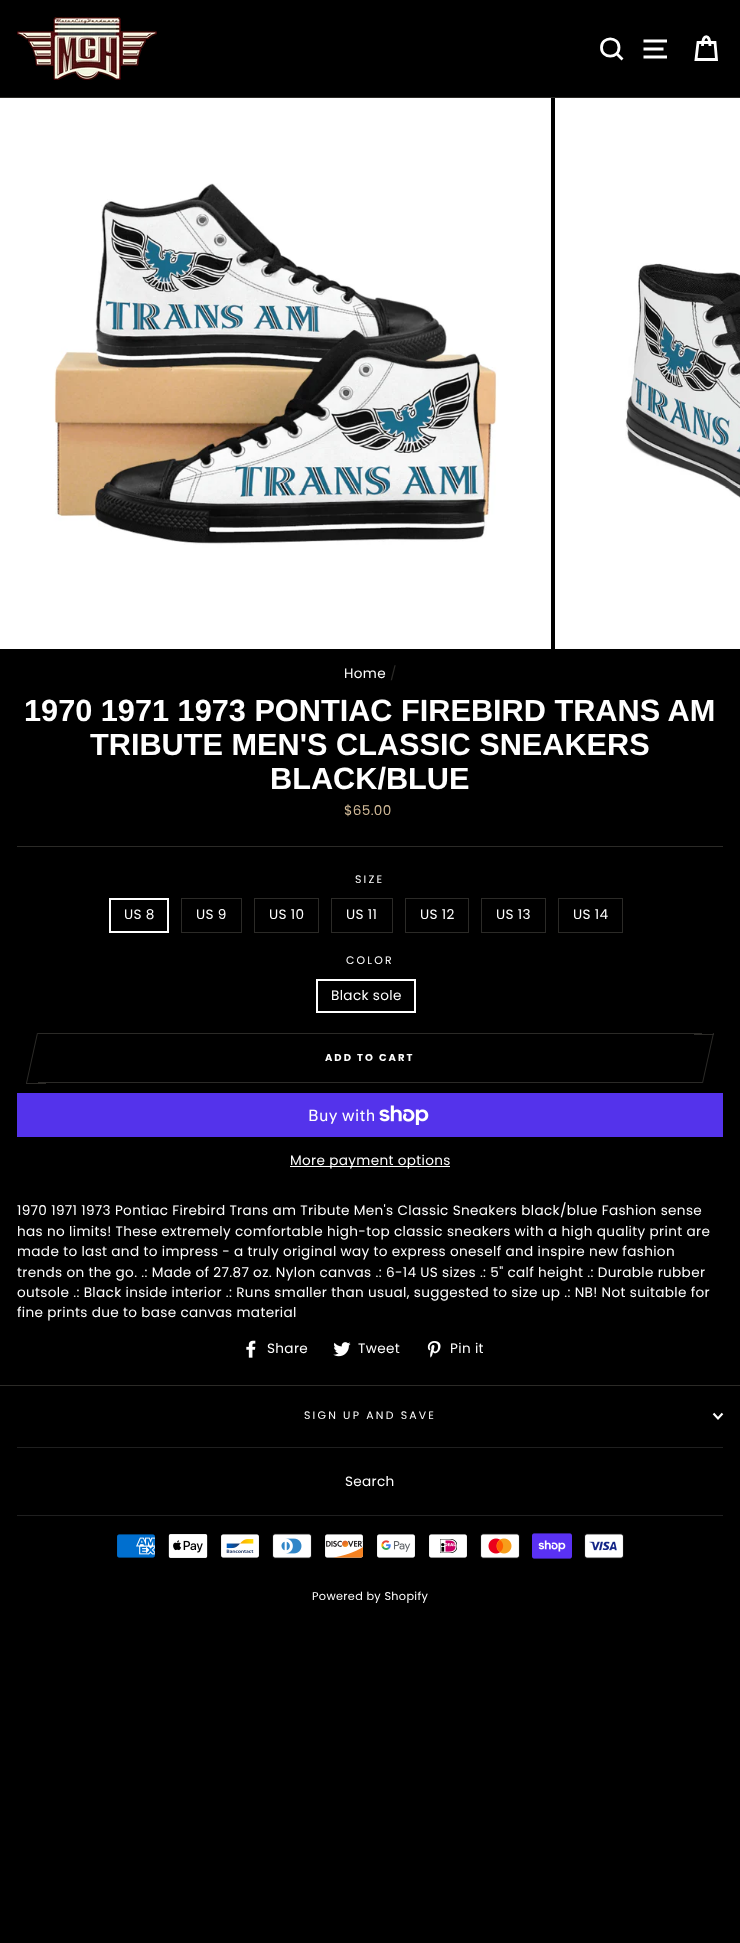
async function draw(canvas) {
	canvas.width = 740;
	canvas.height = 1943;
	const c = canvas.getContext('2d');
	c.miterLimit = 4;
	c.fontKerning = 'normal';
	async function loadImage(src) {
		const img = new Image();
		img.src = src;
		await img.decode();
		return img;
	}

	c.fillStyle = '#000';
	c.fillRect(0, 0, 740, 1943);
	c.fillStyle = '#2b2a27';
	c.fillRect(0, 97, 740, 1);
	c.drawImage(await loadImage('img1.png'), 17, 17, 140, 63);
	c.beginPath();
	c.moveTo(619, 47.5);
	c.bezierCurveTo(619, 59, 601.5, 59, 601.5, 47.5);
	c.bezierCurveTo(601.5, 36, 619, 36, 619, 47.5);
	c.closePath();
	c.moveTo(622.5, 59.5);
	c.lineTo(616.5, 53.5);
	c.strokeStyle = '#fff';
	c.lineWidth = 2.8;
	c.stroke();
	c.beginPath();
	c.moveTo(643.5, 41);
	c.lineTo(667, 41);
	c.moveTo(643.5, 49);
	c.lineTo(663.5, 49);
	c.moveTo(643.5, 57);
	c.lineTo(667, 57);
	c.stroke();
	c.beginPath();
	c.moveTo(702.5, 46);
	c.bezierCurveTo(702.5, 33.5, 710, 33.5, 710, 46);
	c.moveTo(698, 42.5);
	c.lineTo(715, 42.5);
	c.lineTo(716.5, 59.5);
	c.lineTo(696, 59.5);
	c.closePath();
	c.stroke();
	c.drawImage(await loadImage('img2.png'), 0, 98, 551, 551);
	c.drawImage(await loadImage('img3.png'), 555, 98, 185, 551);
	c.letterSpacing = '0.34px';
	c.font = '13.6px Poppins';
	c.fillStyle = '#fff';
	c.fillText('Home', 344, 678);
	c.fillStyle = '#2b2a27';
	c.fillText('/', 390, 678);
	c.letterSpacing = '0px';
	c.font = 'bold 30.7px Liberation Sans';
	c.fillStyle = '#fff';
	for (const [text, x, y] of [
		['1970 1971 1973 PONTIAC FIREBIRD TRANS AM', 24, 721],
		['TRIBUTE MEN\'S CLASSIC SNEAKERS', 90, 755],
		['BLACK/BLUE', 270, 789],
	]) {
		c.fillText(text, x, y);
	}
	c.letterSpacing = '0.34px';
	c.font = '13.6px Poppins';
	c.fillStyle = '#d1ba98';
	c.fillText('$65.00', 344, 815);
	c.fillStyle = '#2b2a27';
	c.fillRect(17, 846, 706, 1);
	c.letterSpacing = '2.2px';
	c.font = '10.9px Poppins';
	c.fillStyle = '#fff';
	c.fillText('SIZE', 355, 883);
	c.lineWidth = 2;
	c.strokeRect(110, 899, 58, 33);
	c.letterSpacing = '0.34px';
	c.font = '13.6px Poppins';
	c.fillText('US 8', 124, 919);
	c.strokeStyle = '#2b2a27';
	c.lineWidth = 1;
	c.strokeRect(181.5, 898.5, 60, 34);
	c.fillText('US 9', 196, 919);
	c.strokeRect(254.5, 898.5, 64, 34);
	c.fillText('US 10', 269, 919);
	c.strokeRect(331.5, 898.5, 61, 34);
	c.fillText('US 11', 346, 919);
	c.strokeRect(405.5, 898.5, 63, 34);
	c.fillText('US 12', 420, 919);
	c.strokeRect(481.5, 898.5, 64, 34);
	c.fillText('US 13', 496, 919);
	c.strokeRect(558.5, 898.5, 64, 34);
	c.fillText('US 14', 573, 919);
	c.letterSpacing = '2.2px';
	c.font = '10.9px Poppins';
	c.fillText('COLOR', 346, 964);
	c.strokeStyle = '#fff';
	c.lineWidth = 2;
	c.strokeRect(317, 980, 98, 32);
	c.letterSpacing = '0.34px';
	c.font = '13.6px Poppins';
	c.fillText('Black sole', 331, 1000);
	for (const [x, y, w, h, color] of [
		[38, 1033, 664, 1, '#2b2a27'],
		[38, 1082, 664, 1, '#2b2a27'],
		[26, 1083, 20, 1, '#2b2a27'],
	]) {
		c.fillStyle = color;
		c.fillRect(x, y, w, h);
	}
	c.beginPath();
	c.moveTo(37, 1033);
	c.lineTo(38, 1033);
	c.lineTo(27, 1083);
	c.lineTo(26, 1083);
	c.closePath();
	c.fill();
	c.letterSpacing = '2px';
	c.font = 'bold 10px Poppins';
	c.fillStyle = '#fff';
	c.fillText('ADD TO CART', 325, 1061);
	c.fillStyle = '#2b2a27';
	c.fillRect(694, 1034, 20, 1);
	c.beginPath();
	c.moveTo(713, 1033);
	c.lineTo(714, 1033);
	c.lineTo(703, 1083);
	c.lineTo(702, 1083);
	c.closePath();
	c.fill();
	c.fillStyle = '#5433eb';
	c.fillRect(17, 1093, 706, 44);
	c.letterSpacing = '0.34px';
	c.font = '16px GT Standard';
	c.fillStyle = '#fff';
	c.fillText('Buy with', 308, 1121);
	c.drawImage(await loadImage('img4.png'), 379, 1105, 50, 20);
	c.fillRect(290, 1166, 160, 1);
	c.font = '13.6px Poppins';
	for (const [text, x, y] of [
		['More payment options', 290, 1165],
		['1970 1971 1973 Pontiac Firebird Trans am Tribute Men\'s Classic Sneakers black/blue Fashion sense', 17, 1215],
		['has no limits! These extremely comfortable high-top classic sneakers with a high quality print are', 17, 1236],
		['made to last and to impress - a truly original way to express oneself and inspire new fashion', 17, 1256],
		['trends on the go. .: Made of 27.87 oz. Nylon canvas .: 6-14 US sizes .: 5" calf height .: Durable rubber', 17, 1277],
		['outsole .: Black inside interior .: Runs smaller than usual, suggested to size up .: NB! Not suitable for', 17, 1297],
		['fine prints due to base canvas material', 17, 1317],
	]) {
		c.fillText(text, x, y);
	}
	c.drawImage(await loadImage('img5.png'), 246, 1340, 10, 18);
	c.fillText('Share', 267, 1353);
	c.drawImage(await loadImage('img6.png'), 333, 1342, 18, 15);
	c.fillText('Tweet', 358, 1353);
	c.drawImage(await loadImage('img7.png'), 427, 1341, 14, 17);
	c.fillText('Pin it', 450, 1353);
	c.fillStyle = '#2b2a27';
	c.fillRect(0, 1385, 740, 1);
	c.letterSpacing = '2.2px';
	c.font = '10.9px Poppins';
	c.fillStyle = '#fff';
	c.fillText('SIGN UP AND SAVE', 304, 1419);
	c.beginPath();
	c.moveTo(713.5, 1413.5);
	c.lineTo(718, 1418.5);
	c.lineTo(722.5, 1413.5);
	c.lineWidth = 2.1;
	c.stroke();
	c.fillStyle = '#1f1f1f';
	c.fillRect(17, 1447, 706, 1);
	c.letterSpacing = '0.34px';
	c.font = '13.6px Poppins';
	c.fillStyle = '#fff';
	c.fillText('Search', 345, 1486);
	c.fillStyle = '#1f1f1f';
	c.fillRect(17, 1515, 706, 1);
	c.drawImage(await loadImage('img8.png'), 117, 1534, 38, 24);
	c.drawImage(await loadImage('img9.png'), 168, 1534, 40, 24);
	c.drawImage(await loadImage('img10.png'), 221, 1534, 38, 24);
	c.drawImage(await loadImage('img11.png'), 272, 1533, 40, 26);
	c.drawImage(await loadImage('img12.png'), 325, 1534, 38, 24);
	c.drawImage(await loadImage('img13.png'), 377, 1534, 38, 24);
	c.drawImage(await loadImage('img14.png'), 429, 1534, 38, 24);
	c.drawImage(await loadImage('img15.png'), 480, 1533, 40, 26);
	c.drawImage(await loadImage('img16.png'), 532, 1533, 40, 26);
	c.drawImage(await loadImage('img17.png'), 584, 1533, 40, 26);
	c.font = '11.25px Poppins';
	c.fillStyle = '#fff';
	c.fillText('Powered by Shopify', 312, 1600);
}

draw(document.querySelector('canvas'));
